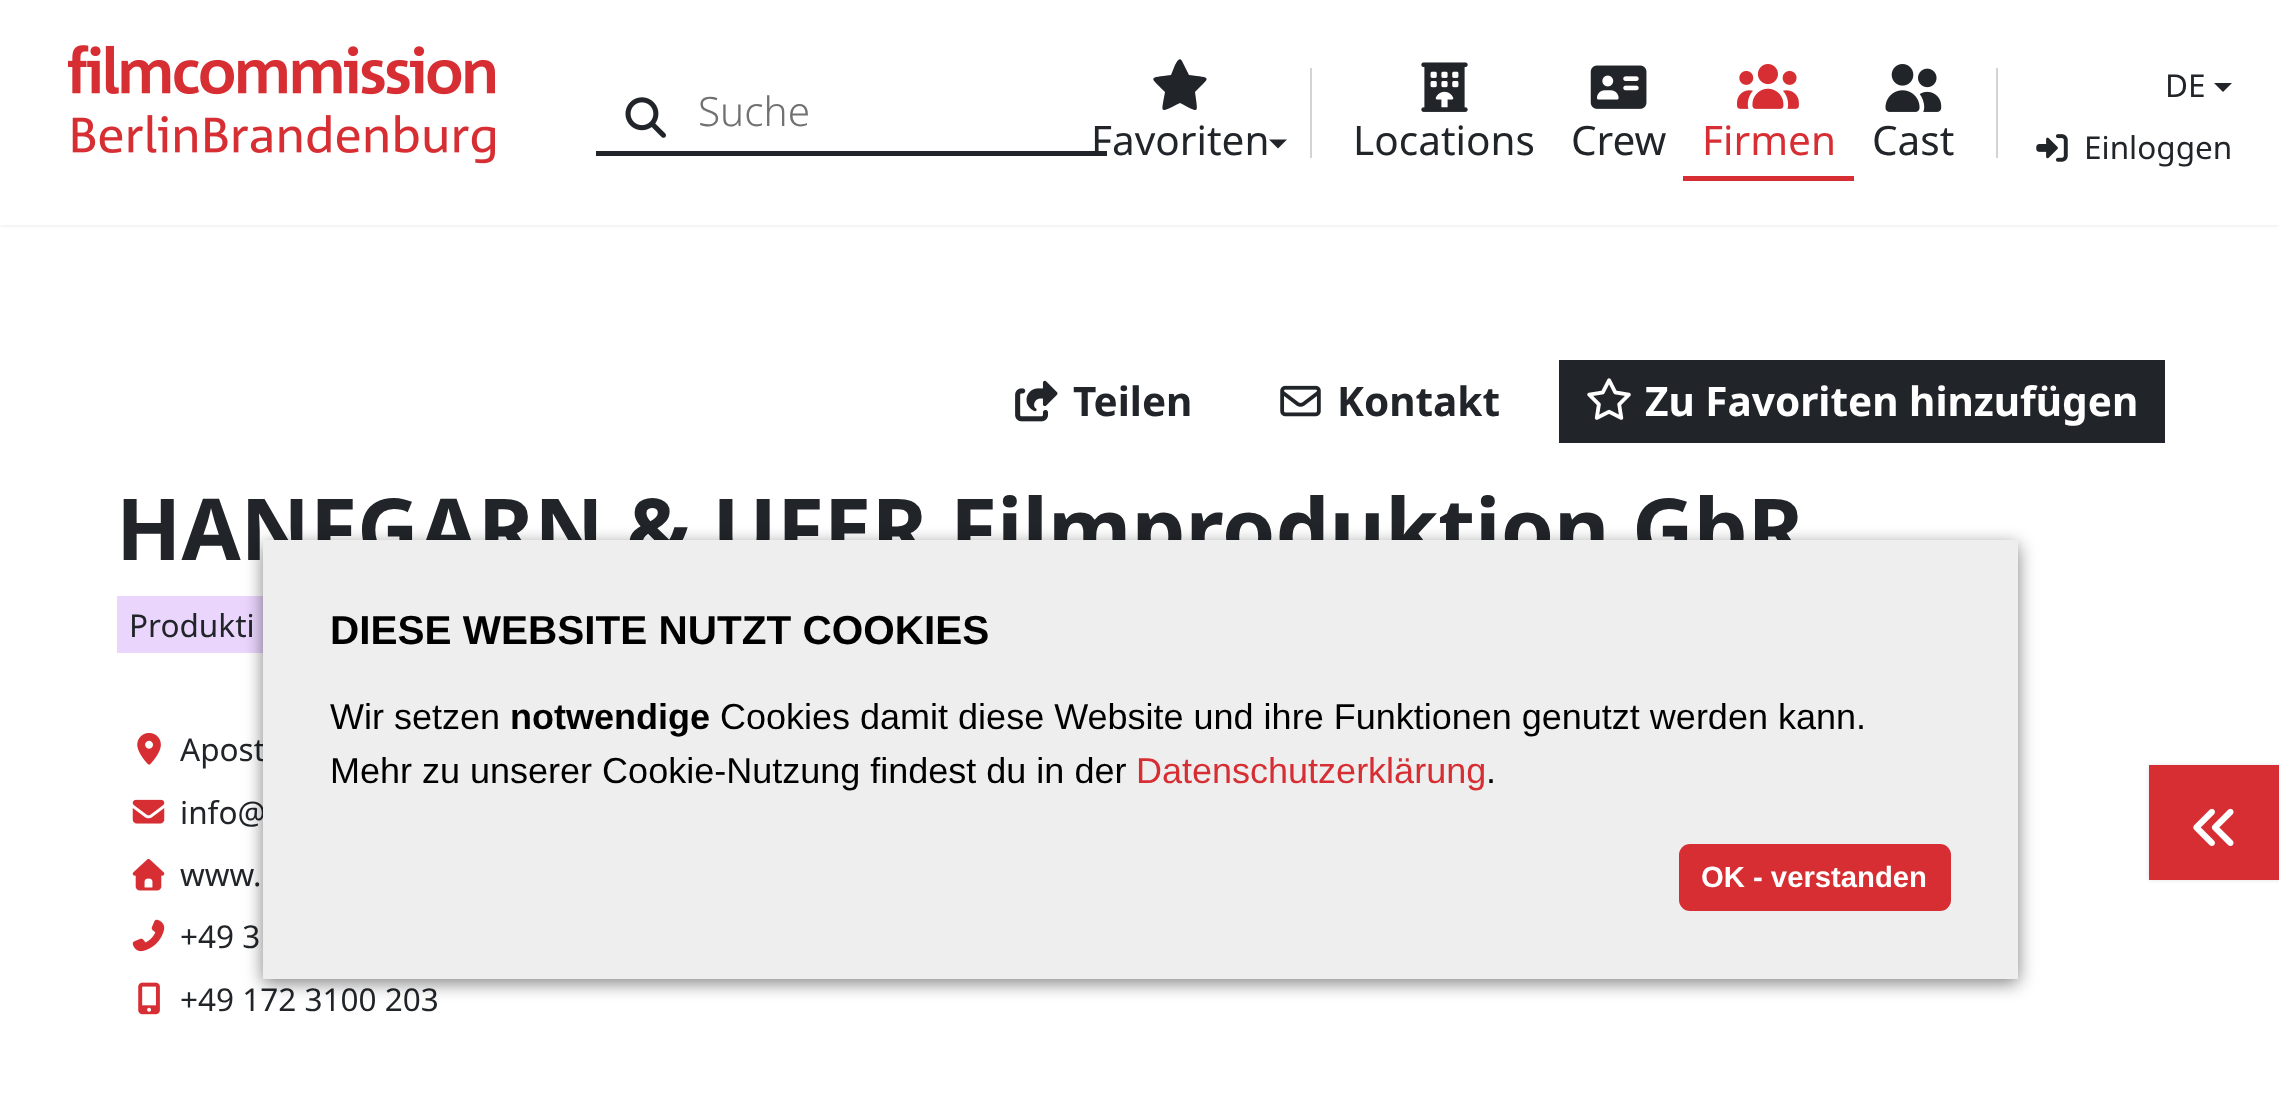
async function draw(canvas) {
	canvas.width = 2279;
	canvas.height = 1112;
	const c = canvas.getContext('2d');
	c.miterLimit = 4;
	c.fontKerning = 'normal';
	async function loadImage(src) {
		const img = new Image();
		img.src = src;
		await img.decode();
		return img;
	}

	c.fillStyle = '#fff';
	c.fillRect(0, 0, 2279, 1112);
	c.save();
	c.beginPath();
	c.rect(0, 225, 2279, 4);
	c.clip();
	c.fillStyle = '#dee2e6';
	c.filter = 'blur(2px)';
	c.beginPath();
	c.rect(0, 0, 2279, 225);
	c.fill();
	c.filter = 'none';
	c.restore();
	c.drawImage(await loadImage('img1.png'), 68, 45, 427, 119);
	c.drawImage(await loadImage('img2.png'), 625, 97, 41, 41);
	c.fillStyle = '#212529';
	c.fillRect(596, 151, 511, 5);
	c.font = '300 40.5px Noto Sans';
	c.fillStyle = '#717171';
	c.fillText('Suche', 698, 126);
	c.fillStyle = '#212529';
	c.beginPath();
	c.moveTo(1182, 61);
	c.bezierCurveTo(1179, 56, 1176, 64, 1175, 65);
	c.lineTo(1171, 75);
	c.bezierCurveTo(1148, 78, 1149, 76, 1165, 92);
	c.bezierCurveTo(1161, 115, 1159, 113, 1180, 103);
	c.bezierCurveTo(1200, 113, 1198, 115, 1195, 92);
	c.bezierCurveTo(1211, 76, 1212, 78, 1189, 75);
	c.closePath();
	c.fill();
	c.font = '40.5px Noto Sans';
	c.fillText('Favoriten', 1091, 155);
	c.beginPath();
	c.moveTo(1269, 139.5);
	c.lineTo(1287, 139.5);
	c.lineTo(1278, 148.5);
	c.closePath();
	c.fill();
	c.fillStyle = '#d3d3d4';
	c.fillRect(1310, 68, 2, 90);
	c.drawImage(await loadImage('img3.png'), 1421, 62, 47, 50);
	c.fillStyle = '#212529';
	c.fillText('Locations', 1353, 155);
	c.drawImage(await loadImage('img4.png'), 1590, 65, 57, 44);
	c.fillText('Crew', 1571, 155);
	c.fillStyle = '#d62e33';
	c.fillRect(1683, 176, 171, 5);
	c.drawImage(await loadImage('img5.png'), 1737, 64, 62, 45);
	c.fillText('Firmen', 1702, 155);
	c.drawImage(await loadImage('img6.png'), 1885, 64, 57, 48);
	c.fillStyle = '#212529';
	c.fillText('Cast', 1872, 155);
	c.fillStyle = '#d3d3d4';
	c.fillRect(1996, 68, 2, 90);
	c.font = '31.5px Noto Sans';
	c.fillStyle = '#212529';
	c.fillText('DE', 2165, 97);
	c.beginPath();
	c.moveTo(2214, 83);
	c.lineTo(2232, 83);
	c.lineTo(2223, 92);
	c.closePath();
	c.fill();
	c.drawImage(await loadImage('img7.png'), 2036, 134, 32, 28);
	c.fillText('Einloggen', 2084, 159);
	c.drawImage(await loadImage('img8.png'), 1015, 380, 43, 42);
	c.font = 'bold 40.5px Noto Sans';
	c.fillText('Teilen', 1073, 416);
	c.drawImage(await loadImage('img9.png'), 1280, 385, 41, 32);
	c.fillText('Kontakt', 1337, 416);
	c.fillRect(1559, 360, 606, 83);
	c.drawImage(await loadImage('img10.png'), 1587, 378, 44, 42);
	c.fillStyle = '#fff';
	c.fillText('Zu Favoriten hinzufügen', 1645, 416);
	c.font = 'bold 85.5px Noto Sans';
	c.fillStyle = '#212529';
	c.fillText('HANFGARN & UFER Filmproduktion GbR', 116, 560);
	c.fillStyle = '#ead5fd';
	c.fillRect(117, 596, 146, 57);
	c.font = '31.5px Noto Sans';
	c.fillStyle = '#212529';
	c.fillText('Produkti', 129, 637);
	c.drawImage(await loadImage('img11.png'), 137, 732, 24, 33);
	c.fillText('Apost', 180, 761);
	c.drawImage(await loadImage('img12.png'), 132, 799, 33, 25);
	c.fillText('info@', 180, 824);
	c.drawImage(await loadImage('img13.png'), 132, 859, 33, 32);
	c.fillText('www.', 180, 886);
	c.drawImage(await loadImage('img14.png'), 132, 919, 33, 33);
	c.fillText('+49 3', 180, 948);
	c.drawImage(await loadImage('img15.png'), 138, 982, 22, 33);
	c.fillText('+49 172 3100 203', 180, 1011);
	c.fillStyle = '#00000080';
	c.filter = 'blur(9px)';
	c.beginPath();
	c.rect(263, 545, 1755, 438);
	c.fill();
	c.filter = 'none';
	c.fillStyle = '#eee';
	c.fillRect(263, 540, 1755, 439);
	c.font = 'bold 40.5px Liberation Sans';
	c.fillStyle = '#000';
	c.fillText('DIESE WEBSITE NUTZT COOKIES', 330, 644);
	c.font = '36px Liberation Sans';
	c.fillText('Wir setzen', 330, 729);
	c.font = 'bold 36px Liberation Sans';
	c.fillText('notwendige', 510, 729);
	c.font = '36px Liberation Sans';
	c.fillText('Cookies damit diese Website und ihre Funktionen genutzt werden kann.', 720, 729);
	c.fillText('Mehr zu unserer Cookie-Nutzung findest du in der', 330, 783);
	c.fillStyle = '#d62e33';
	c.fillText('Datenschutzerklärung', 1136, 783);
	c.fillStyle = '#000';
	c.fillText('.', 1486, 783);
	c.fillStyle = '#d62e33';
	c.beginPath();
	c.roundRect(1679, 844, 272, 67, 11);
	c.fill();
	c.font = 'bold 29.25px Liberation Sans';
	c.fillStyle = '#fff';
	c.fillText('OK - verstanden', 1701, 887);
	c.fillStyle = '#dee2e6';
	c.filter = 'blur(2px)';
	c.beginPath();
	c.rect(2149, 765, 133, 115);
	c.fill();
	c.filter = 'none';
	c.fillStyle = '#d62e33';
	c.fillRect(2149, 765, 130, 115);
	c.drawImage(await loadImage('img16.png'), 2193, 808, 41, 38);
}

draw(document.querySelector('canvas'));
